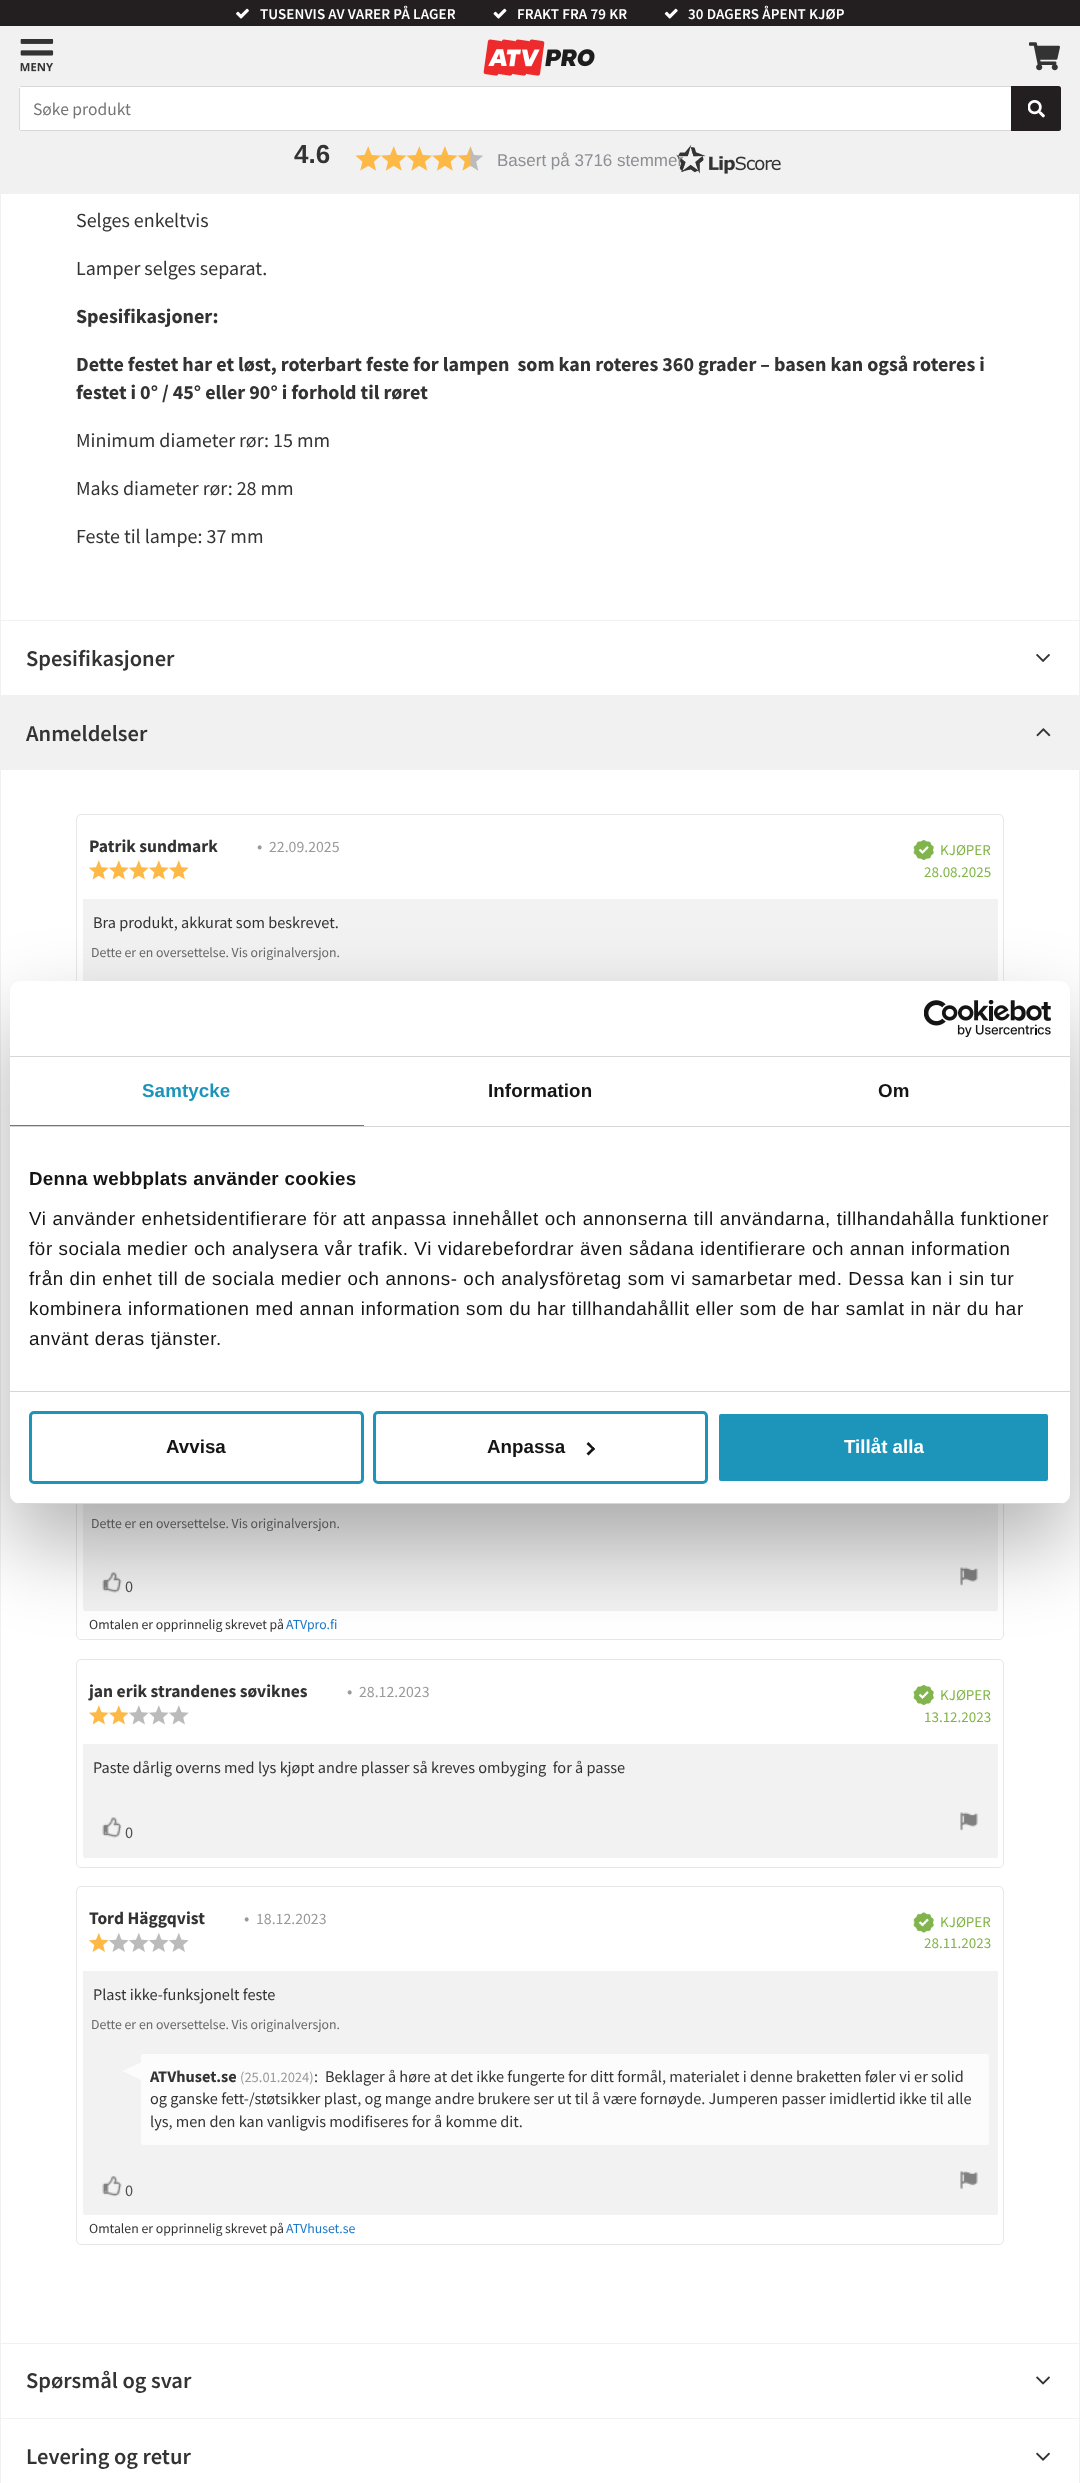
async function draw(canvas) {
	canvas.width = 1080;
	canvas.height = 2483;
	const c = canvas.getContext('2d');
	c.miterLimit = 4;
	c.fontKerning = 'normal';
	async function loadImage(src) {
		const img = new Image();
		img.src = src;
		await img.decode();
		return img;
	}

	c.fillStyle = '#fff';
	c.fillRect(0, 0, 1080, 2483);
	c.strokeStyle = '#f1f1f1';
	c.strokeRect(0.5, -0.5, 1079, 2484);
	c.fillStyle = '#231f20';
	c.fillRect(0, 0, 1080, 26);
	c.drawImage(await loadImage('img1.png'), 236, 8, 13, 11);
	c.letterSpacing = '0.1px';
	c.font = '600 15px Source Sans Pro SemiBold';
	c.fillStyle = '#fff';
	c.fillText('TUSENVIS AV VARER PÅ LAGER', 260, 19);
	c.drawImage(await loadImage('img2.png'), 493, 8, 14, 11);
	c.fillText('FRAKT FRA 79 KR', 517, 19);
	c.drawImage(await loadImage('img3.png'), 664, 8, 14, 11);
	c.fillText('30 DAGERS ÅPENT KJØP', 688, 19);
	c.fillStyle = '#f1f1f1';
	c.fillRect(1, 26, 1078, 168);
	c.drawImage(await loadImage('img4.png'), 20, 39, 34, 33);
	c.drawImage(await loadImage('img5.png'), 483, 39, 112, 37);
	c.drawImage(await loadImage('img6.png'), 1029, 42, 31, 29);
	c.fillStyle = '#fff';
	c.beginPath();
	c.roundRect(19, 86, 992, 45, [2.5, 0, 0, 2.5]);
	c.fill();
	for (const [x, y, w, h, color] of [
		[20, 86, 991, 1, '#d8d8d8'],
		[20, 130, 991, 1, '#d8d8d8'],
		[19, 88, 1, 42, '#d8d8d8'],
	]) {
		c.fillStyle = color;
		c.fillRect(x, y, w, h);
	}
	c.letterSpacing = '0px';
	c.font = '17.5px Source Sans Pro';
	c.fillStyle = '#757575';
	c.fillText('Søke produkt', 33, 115);
	c.fillStyle = '#231f20';
	c.beginPath();
	c.roundRect(1011, 86, 50, 45, [0, 2.5, 2.5, 0]);
	c.fill();
	c.drawImage(await loadImage('img7.png'), 1028, 100, 17, 18);
	c.font = 'bold 26px Liberation Sans';
	c.fillStyle = '#333';
	c.fillText('4.6', 294, 163);
	c.drawImage(await loadImage('img8.png'), 355, 144, 426, 30);
	c.font = '17px Liberation Sans';
	c.fillStyle = '#8c8f93';
	c.fillText('Basert på 3716 stemmer', 497, 166);
	c.font = '20px Source Sans Pro';
	c.fillStyle = '#333';
	c.fillText('Selges enkeltvis', 76, 227);
	c.fillText('Lamper selges separat.', 76, 275);
	c.font = 'bold 20px Source Sans Pro';
	for (const [text, x, y] of [
		['Spesifikasjoner:', 76, 323],
		['Dette festet har et løst, roterbart feste for lampen  som kan roteres 360 grader – basen kan også roteres i', 76, 371],
		['festet i 0° / 45° eller 90° i forhold til røret', 76, 399],
	]) {
		c.fillText(text, x, y);
	}
	c.font = '20px Source Sans Pro';
	for (const [text, x, y] of [
		['Minimum diameter rør: 15 mm', 76, 447],
		['Maks diameter rør: 28 mm', 76, 495],
		['Feste til lampe: 37 mm', 76, 543],
	]) {
		c.fillText(text, x, y);
	}
	c.fillStyle = '#f1f1f1';
	c.fillRect(1, 620, 1078, 1);
	c.font = '600 22.5px Source Sans Pro SemiBold';
	c.fillStyle = '#333';
	c.fillText('Spesifikasjoner', 26, 666);
	c.drawImage(await loadImage('img9.png'), 1036, 654, 14, 8);
	c.fillStyle = '#f1f1f1';
	c.fillRect(1, 695, 1078, 75);
	c.fillStyle = '#333';
	c.fillText('Anmeldelser', 26, 741);
	c.drawImage(await loadImage('img10.png'), 1036, 728, 15, 9);
	c.beginPath();
	c.roundRect(76.5, 814.5, 927, 255, 4.5);
	c.strokeStyle = '#e7e7e7';
	c.stroke();
	c.font = 'bold 17.5px Source Sans Pro';
	c.fillText('Patrik sundmark', 89, 852);
	c.font = '17.5px Source Sans Pro';
	c.fillStyle = '#999';
	c.fillText('•', 257, 852);
	c.font = '15.75px Source Sans Pro';
	c.fillText('22.09.2025', 269, 852);
	c.drawImage(await loadImage('img11.png'), 89, 860, 20, 20);
	c.drawImage(await loadImage('img11.png'), 109, 860, 20, 20);
	c.drawImage(await loadImage('img11.png'), 129, 860, 20, 20);
	c.drawImage(await loadImage('img11.png'), 149, 860, 20, 20);
	c.drawImage(await loadImage('img11.png'), 169, 860, 20, 20);
	c.drawImage(await loadImage('img12.png'), 913, 840, 21, 20);
	c.font = '15px Source Sans Pro';
	c.fillStyle = '#82b548';
	c.fillText('KJØPER', 940, 855);
	c.fillText('28.08.2025', 924, 877);
	c.fillStyle = '#f2f2f2';
	c.fillRect(83, 899, 915, 82);
	c.font = '16.25px Source Sans Pro';
	c.fillStyle = '#333';
	c.fillText('Bra produkt, akkurat som beskrevet.', 93, 928);
	c.font = '13.75px Source Sans Pro';
	c.fillStyle = '#6b6868';
	c.fillText('Dette er en oversettelse. Vis originalversjon.', 91, 957);
	c.beginPath();
	c.roundRect(76.5, 1385.5, 927, 254, 4.5);
	c.stroke();
	c.fillStyle = '#f2f2f2';
	c.fillRect(83, 1504, 915, 55);
	c.fillStyle = '#6b6868';
	c.fillText('Dette er en oversettelse. Vis originalversjon.', 91, 1528);
	c.fillStyle = '#f2f2f2';
	c.beginPath();
	c.roundRect(83, 1559, 915, 52, [0, 0, 2.5, 2.5]);
	c.fill();
	c.drawImage(await loadImage('img13.png'), 102, 1572, 20, 21);
	c.font = '16.25px Source Sans Pro';
	c.fillStyle = '#4d4d4d';
	c.fillText('0', 125, 1592);
	c.drawImage(await loadImage('img14.png'), 960, 1567, 18, 19);
	c.font = '13.75px Source Sans Pro';
	c.fillStyle = '#333';
	c.fillText('Omtalen er opprinnelig skrevet på', 89, 1629);
	c.fillStyle = '#1c78c8';
	c.fillText('ATVpro.fi', 286, 1629);
	c.beginPath();
	c.roundRect(76.5, 1659.5, 927, 208, 4.5);
	c.stroke();
	c.font = 'bold 17.5px Source Sans Pro';
	c.fillStyle = '#333';
	c.fillText('jan erik strandenes søviknes', 89, 1697);
	c.font = '17.5px Source Sans Pro';
	c.fillStyle = '#999';
	c.fillText('•', 347, 1697);
	c.font = '15.75px Source Sans Pro';
	c.fillText('28.12.2023', 359, 1697);
	c.drawImage(await loadImage('img11.png'), 89, 1705, 20, 20);
	c.drawImage(await loadImage('img11.png'), 109, 1705, 20, 20);
	c.drawImage(await loadImage('img15.png'), 129, 1705, 20, 20);
	c.drawImage(await loadImage('img15.png'), 149, 1705, 20, 20);
	c.drawImage(await loadImage('img15.png'), 169, 1705, 20, 20);
	c.drawImage(await loadImage('img12.png'), 913, 1685, 21, 20);
	c.font = '15px Source Sans Pro';
	c.fillStyle = '#82b548';
	c.fillText('KJØPER', 940, 1700);
	c.fillText('13.12.2023', 924, 1722);
	c.fillStyle = '#f2f2f2';
	c.fillRect(83, 1744, 915, 60);
	c.font = '16.25px Source Sans Pro';
	c.fillStyle = '#333';
	c.fillText('Paste dårlig overns med lys kjøpt andre plasser så kreves ombyging  for å passe', 93, 1773);
	c.fillStyle = '#f2f2f2';
	c.beginPath();
	c.roundRect(83, 1804, 915, 54, [0, 0, 2.5, 2.5]);
	c.fill();
	c.drawImage(await loadImage('img14.png'), 960, 1812, 18, 19);
	c.drawImage(await loadImage('img13.png'), 102, 1817, 20, 21);
	c.fillStyle = '#4d4d4d';
	c.fillText('0', 125, 1838);
	c.beginPath();
	c.roundRect(76.5, 1886.5, 927, 358, 4.5);
	c.stroke();
	c.font = 'bold 17.5px Source Sans Pro';
	c.fillStyle = '#333';
	c.fillText('Tord Häggqvist', 89, 1924);
	c.font = '17.5px Source Sans Pro';
	c.fillStyle = '#999';
	c.fillText('•', 244, 1924);
	c.font = '15.75px Source Sans Pro';
	c.fillText('18.12.2023', 256, 1924);
	c.drawImage(await loadImage('img16.png'), 89, 1933, 20, 19);
	c.drawImage(await loadImage('img17.png'), 109, 1933, 20, 19);
	c.drawImage(await loadImage('img17.png'), 129, 1933, 20, 19);
	c.drawImage(await loadImage('img17.png'), 149, 1933, 20, 19);
	c.drawImage(await loadImage('img17.png'), 169, 1933, 20, 19);
	c.drawImage(await loadImage('img18.png'), 913, 1912, 21, 21);
	c.font = '15px Source Sans Pro';
	c.fillStyle = '#82b548';
	c.fillText('KJØPER', 940, 1927);
	c.fillText('28.11.2023', 924, 1948);
	c.fillStyle = '#f2f2f2';
	c.fillRect(83, 1971, 915, 192);
	c.font = '16.25px Source Sans Pro';
	c.fillStyle = '#333';
	c.fillText('Plast ikke-funksjonelt feste', 93, 2000);
	c.font = '13.75px Source Sans Pro';
	c.fillStyle = '#6b6868';
	c.fillText('Dette er en oversettelse. Vis originalversjon.', 91, 2029);
	c.fillStyle = '#fcfcfc';
	c.beginPath();
	c.roundRect(141, 2054, 848, 91, 2.5);
	c.fill();
	c.beginPath();
	c.moveTo(141, 2062.5);
	c.lineTo(141, 2080);
	c.lineTo(122.5, 2071);
	c.closePath();
	c.fill();
	c.font = 'bold 16.25px Source Sans Pro';
	c.fillStyle = '#333';
	c.fillText('ATVhuset.se', 150, 2082);
	c.font = '14.5px Source Sans Pro';
	c.fillStyle = '#999';
	c.fillText('(25.01.2024)', 240, 2082);
	c.font = '16.25px Source Sans Pro';
	c.fillStyle = '#333';
	for (const [text, x, y] of [
		[':', 314, 2082],
		['Beklager å høre at det ikke fungerte for ditt formål, materialet i denne braketten føler vi er solid', 325, 2082],
		['og ganske fett-/støtsikker plast, og mange andre brukere ser ut til å være fornøyde. Jumperen passer imidlertid ikke til alle', 150, 2104],
		['lys, men den kan vanligvis modifiseres for å komme dit.', 150, 2127],
	]) {
		c.fillText(text, x, y);
	}
	c.fillStyle = '#f2f2f2';
	c.beginPath();
	c.roundRect(83, 2163, 915, 52, [0, 0, 2.5, 2.5]);
	c.fill();
	c.drawImage(await loadImage('img19.png'), 960, 2171, 18, 18);
	c.drawImage(await loadImage('img20.png'), 102, 2176, 20, 21);
	c.fillStyle = '#4d4d4d';
	c.fillText('0', 125, 2196);
	c.font = '13.75px Source Sans Pro';
	c.fillStyle = '#333';
	c.fillText('Omtalen er opprinnelig skrevet på', 89, 2233);
	c.fillStyle = '#1c78c8';
	c.fillText('ATVhuset.se', 286, 2233);
	c.fillStyle = '#f1f1f1';
	c.fillRect(1, 2343, 1078, 1);
	c.font = '600 22.5px Source Sans Pro SemiBold';
	c.fillStyle = '#333';
	c.fillText('Spørsmål og svar', 26, 2388);
	c.drawImage(await loadImage('img21.png'), 1036, 2376, 14, 9);
	c.fillStyle = '#f1f1f1';
	c.fillRect(1, 2418, 1078, 1);
	c.fillStyle = '#333';
	c.fillText('Levering og retur', 26, 2464);
	c.drawImage(await loadImage('img22.png'), 1036, 2452, 14, 9);
	c.fillStyle = '#0000004d';
	c.filter = 'blur(42.5px)';
	c.beginPath();
	c.roundRect(10, 1021, 1060, 523, 10);
	c.fill();
	c.filter = 'none';
	c.fillStyle = '#fff';
	c.beginPath();
	c.roundRect(10, 981, 1060, 523, 10);
	c.fill();
	c.fillStyle = '#d6d6d6';
	c.fillRect(10, 1056, 1060, 1);
	c.drawImage(await loadImage('img23.png'), 924, 1000, 127, 38);
	c.fillRect(10, 1126, 1060, 1);
	c.fillStyle = '#1d95ba';
	c.fillRect(10, 1125, 354, 1);
	c.letterSpacing = '0.1px';
	c.font = 'bold 18.75px Liberation Sans';
	c.fillText('Samtycke', 142, 1097);
	c.fillStyle = '#141414';
	c.fillText('Information', 488, 1097);
	c.fillText('Om', 878, 1097);
	c.fillStyle = '#d6d6d6';
	c.fillRect(10, 1391, 1060, 1);
	c.letterSpacing = '0.3px';
	c.fillStyle = '#141414';
	c.fillText('Denna webbplats använder cookies', 29, 1185);
	c.letterSpacing = '0.62px';
	c.font = '18.75px Liberation Sans';
	for (const [text, x, y] of [
		['Vi använder enhetsidentifierare för att anpassa innehållet och annonserna till användarna, tillhandahålla funktioner', 29, 1225],
		['för sociala medier och analysera vår trafik. Vi vidarebefordrar även sådana identifierare och annan information', 29, 1255],
		['från din enhet till de sociala medier och annons- och analysföretag som vi samarbetar med. Dessa kan i sin tur', 29, 1285],
		['kombinera informationen med annan information som du har tillhandahållit eller som de har samlat in när du har', 29, 1315],
		['använt deras tjänster.', 29, 1345],
	]) {
		c.fillText(text, x, y);
	}
	c.save();
	c.beginPath();
	c.roundRect(10, 981, 1060, 523, 10);
	c.clip();
	c.fillStyle = '#d6d6d6';
	c.fillRect(10, 1503, 1060, 1);
	c.restore();
	c.beginPath();
	c.roundRect(30.5, 1412.5, 332, 70, 3.5);
	c.strokeStyle = '#1d95ba';
	c.lineWidth = 3;
	c.stroke();
	c.letterSpacing = '0px';
	c.font = 'bold 18.75px Liberation Sans';
	c.fillText('Avvisa', 166, 1453);
	c.beginPath();
	c.roundRect(374.5, 1412.5, 332, 70, 3.5);
	c.stroke();
	c.fillText('Anpassa', 487, 1453);
	c.beginPath();
	c.moveTo(588.5, 1442);
	c.lineTo(595, 1449);
	c.lineTo(593.5, 1450.5);
	c.lineTo(586.5, 1444);
	c.closePath();
	c.fill();
	c.beginPath();
	c.moveTo(593.5, 1447);
	c.lineTo(595, 1449);
	c.lineTo(588.5, 1455.5);
	c.lineTo(586.5, 1453.5);
	c.closePath();
	c.fill();
	c.fillStyle = '#1d95ba';
	c.beginPath();
	c.roundRect(717.5, 1412.5, 332, 70, 3.5);
	c.fill();
	c.strokeStyle = '#fff';
	c.stroke();
	c.fillStyle = '#fff';
	c.fillText('Tillåt alla', 844, 1453);
}

draw(document.querySelector('canvas'));
